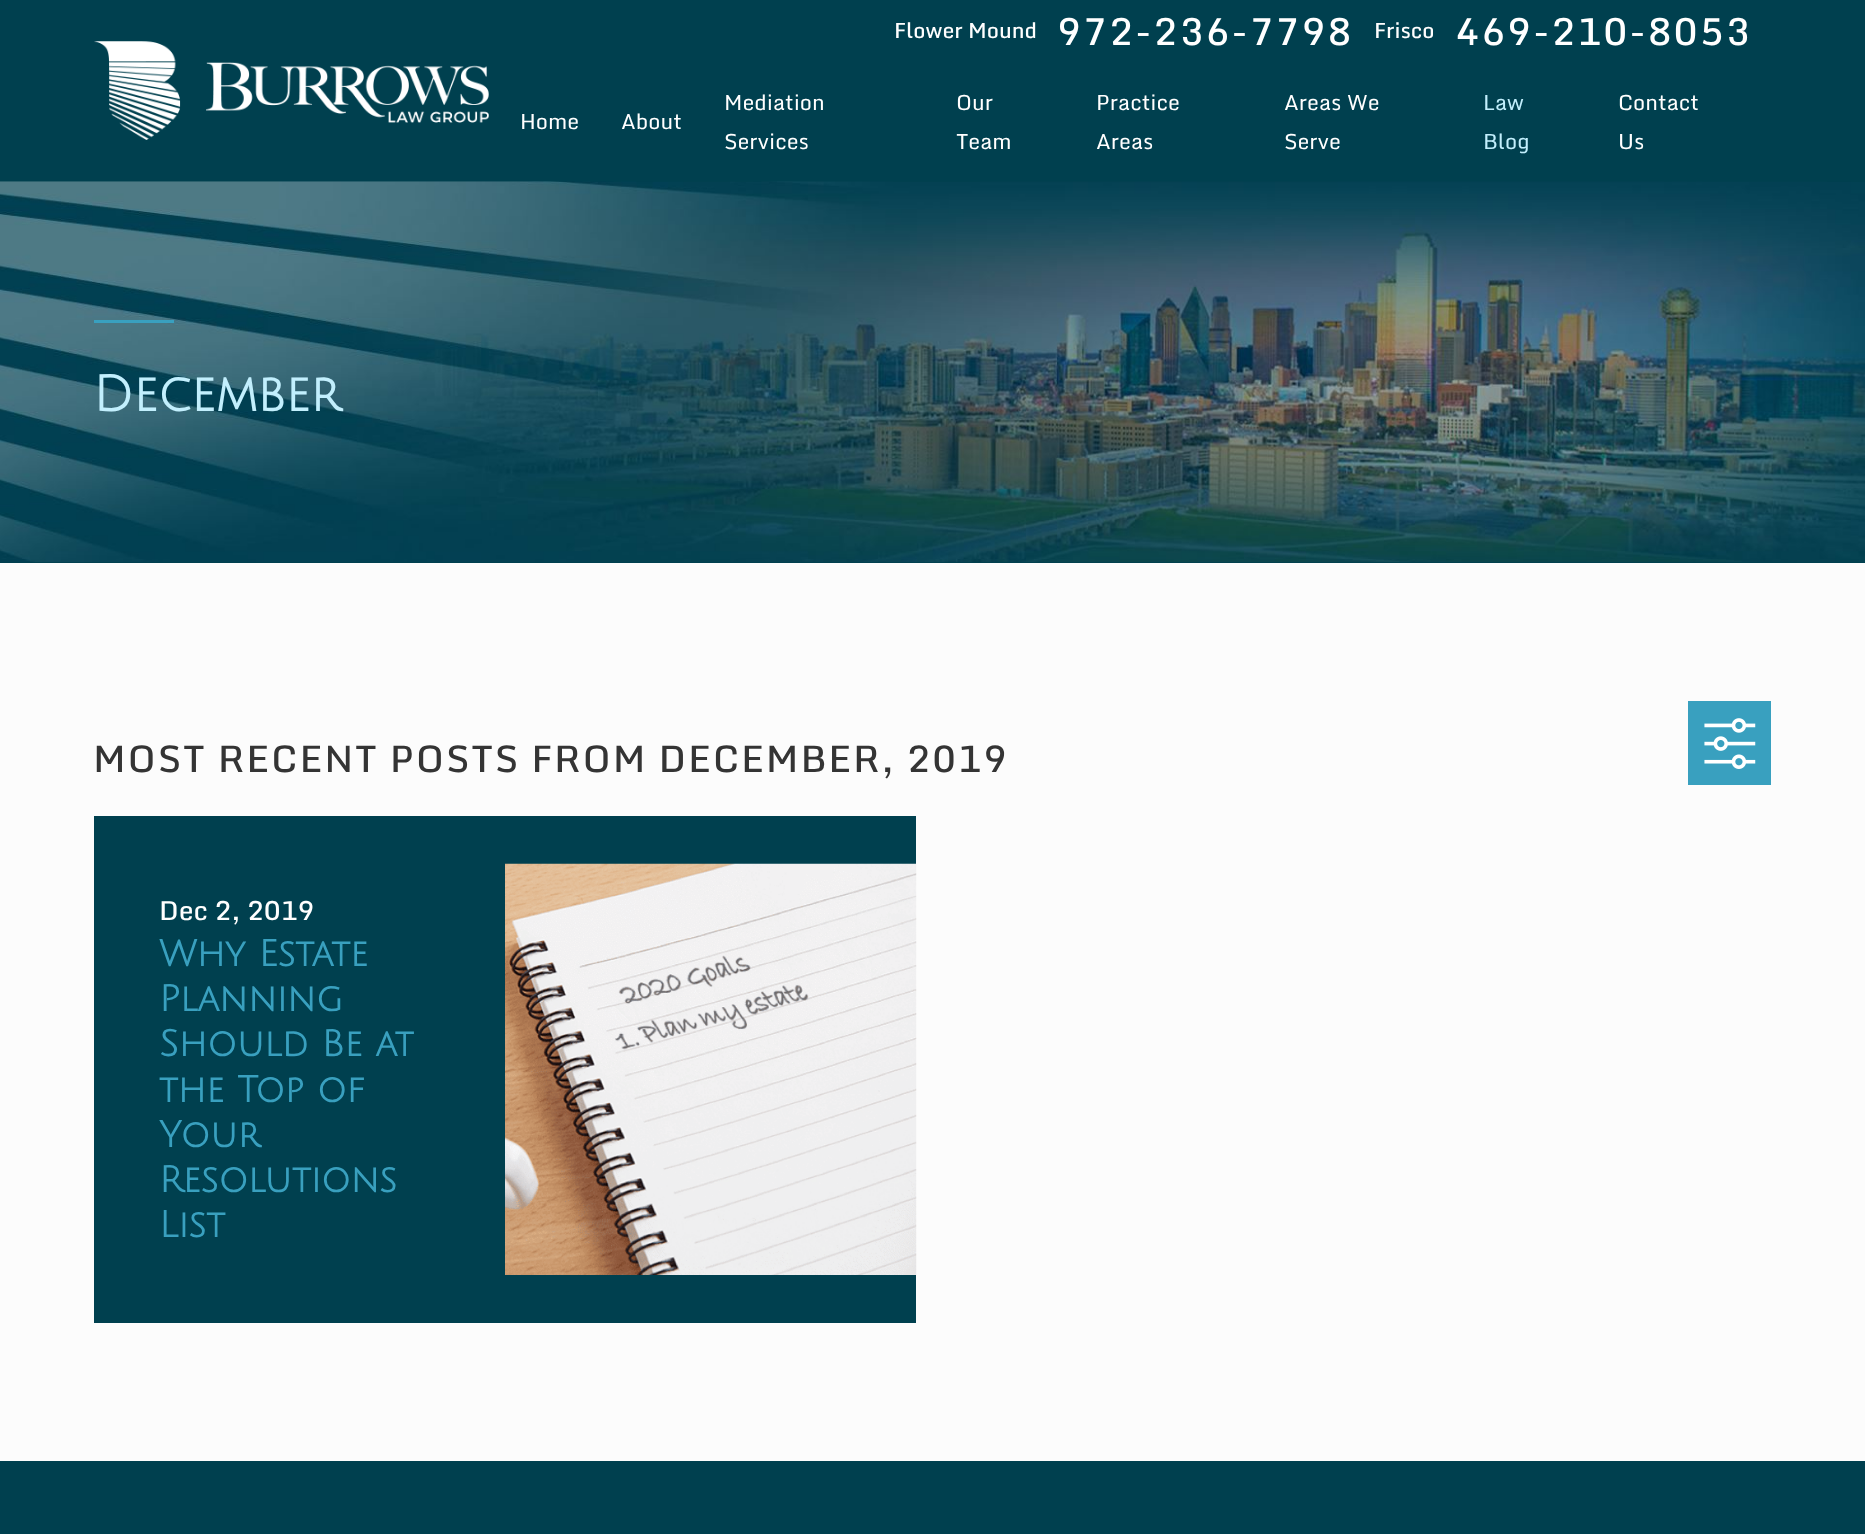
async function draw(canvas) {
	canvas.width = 1865;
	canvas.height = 1534;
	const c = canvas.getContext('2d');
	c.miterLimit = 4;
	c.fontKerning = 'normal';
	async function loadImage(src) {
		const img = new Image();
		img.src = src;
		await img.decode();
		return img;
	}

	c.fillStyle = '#fcfcfc';
	c.fillRect(0, 0, 1865, 1534);
	c.fillStyle = '#00404f';
	c.fillRect(0, 0, 1865, 563);
	c.drawImage(await loadImage('img1.png'), 94, 41, 395, 99);
	c.font = '500 21.25px Monda';
	c.fillStyle = '#fff';
	c.fillText('Flower Mound', 894, 38);
	c.letterSpacing = '1.9px';
	c.font = '500 37.75px Monda';
	c.fillText('972-236-7798', 1057, 45);
	c.letterSpacing = '0px';
	c.font = '500 21.25px Monda';
	c.fillText('Frisco', 1374, 38);
	c.letterSpacing = '1.9px';
	c.font = '500 37.75px Monda';
	c.fillText('469-210-8053', 1455, 45);
	c.letterSpacing = '0px';
	c.font = '21.25px Monda';
	for (const [text, x, y] of [
		['Home', 520, 129],
		['About', 621, 129],
		['Mediation', 724, 110],
		['Services', 724, 149],
		['Our', 956, 110],
		['Team', 956, 149],
		['Practice', 1096, 110],
		['Areas', 1096, 149],
		['Areas We', 1284, 110],
		['Serve', 1284, 149],
	]) {
		c.fillText(text, x, y);
	}
	c.fillStyle = '#c2effd';
	c.fillText('Law', 1483, 110);
	c.fillText('Blog', 1483, 149);
	c.fillStyle = '#fff';
	c.fillText('Contact', 1618, 110);
	c.fillText('Us', 1618, 149);
	c.drawImage(await loadImage('img2.png'), 0, 181, 1865, 382);
	c.fillStyle = '#39a0bf';
	c.fillRect(94, 320, 80, 3);
	c.font = 'bold 49.5px Julius Sans One';
	c.fillStyle = '#c2effd';
	c.fillText('December', 93, 411);
	c.letterSpacing = '1.85px';
	c.font = '500 37.05px Monda';
	c.fillStyle = '#343434';
	c.fillText('MOST RECENT POSTS FROM DECEMBER, 2019', 93, 772);
	c.fillStyle = '#39a0bf';
	c.fillRect(1688, 701, 83, 84);
	c.drawImage(await loadImage('img3.png'), 1704, 718, 52, 51);
	c.fillStyle = '#00404f';
	c.fillRect(94, 816, 822, 507);
	c.letterSpacing = '0px';
	c.font = '500 26.5px Monda';
	c.fillStyle = '#fff';
	c.fillText('Dec 2, 2019', 159, 920);
	c.font = 'bold 36.25px Julius Sans One';
	c.fillStyle = '#39a0bf';
	for (const [text, x, y] of [
		['Why Estate', 159, 966],
		['Planning', 159, 1011],
		['Should Be at', 159, 1056],
		['the Top of', 159, 1102],
		['Your', 159, 1147],
		['Resolutions', 159, 1192],
		['List', 159, 1237],
	]) {
		c.fillText(text, x, y);
	}
	c.drawImage(await loadImage('img4.png'), 505, 863, 412, 412);
	c.fillStyle = '#00404f';
	c.fillRect(0, 1461, 1865, 73);
}

draw(document.querySelector('canvas'));
